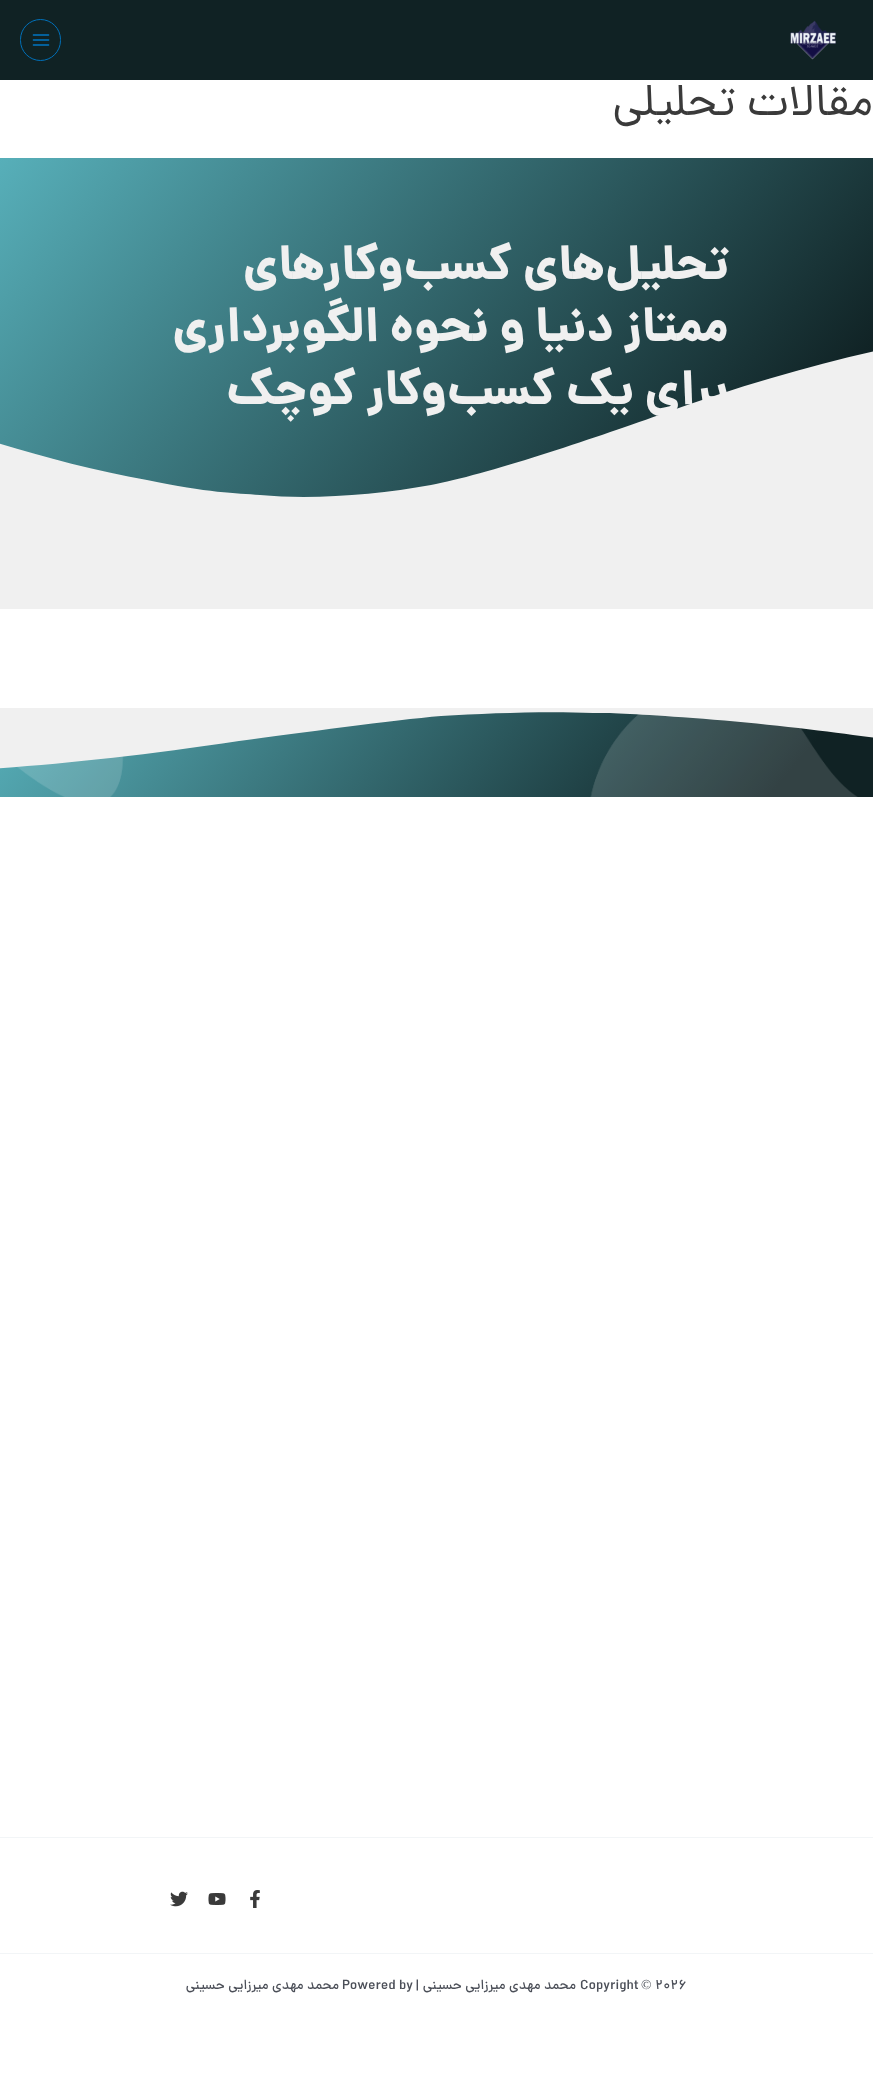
async function draw(canvas) {
	canvas.width = 873;
	canvas.height = 2074;
	const c = canvas.getContext('2d');
	c.miterLimit = 4;
	c.fontKerning = 'normal';
	async function loadImage(src) {
		const img = new Image();
		img.src = src;
		await img.decode();
		return img;
	}
	let gradient;

	c.fillStyle = '#fff';
	c.fillRect(0, 0, 873, 2074);
	c.fillStyle = '#102224';
	c.fillRect(0, 0, 873, 80);
	c.drawImage(await loadImage('img1.png'), 790, 20, 46, 40);
	c.beginPath();
	c.roundRect(20.5, 19.5, 40, 41, 20);
	c.strokeStyle = '#0170b9';
	c.stroke();
	c.drawImage(await loadImage('img2.png'), 32, 34, 18, 12);
	c.direction = 'rtl';
	c.font = '45.5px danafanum';
	c.fillStyle = '#3a3a3a';
	c.fillText('مقالات تحلیلی', 873, 115);
	gradient = c.createLinearGradient(94, 46, 779, 620);
	gradient.addColorStop(0, '#57afb9');
	gradient.addColorStop(0.89, '#102224');
	c.fillStyle = gradient;
	c.fillRect(0, 158, 873, 339);
	c.font = '800 48px danafanum';
	c.fillStyle = '#f0f0f0';
	c.fillText('تحلیل‌های کسب‌وکارهای', 729, 279);
	c.beginPath();
	c.moveTo(260, 495);
	c.bezierCurveTo(311, 500, 377, 495, 431, 485);
	c.bezierCurveTo(485, 475, 592, 439, 659, 415);
	c.bezierCurveTo(831, 353, 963, 329, 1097, 318);
	c.bezierCurveTo(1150, 314, 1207, 312, 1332, 323);
	c.bezierCurveTo(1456, 335, 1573, 373, 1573, 373);
	c.lineTo(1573, 508);
	c.lineTo(-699, 508);
	c.lineTo(-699, 449);
	c.bezierCurveTo(-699, 449, -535, 385, -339, 389);
	c.bezierCurveTo(-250, 391, -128, 403, -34, 433);
	c.bezierCurveTo(14, 449, 84, 469, 147, 480);
	c.bezierCurveTo(208, 493, 236, 493, 260, 495);
	c.closePath();
	c.fill();
	c.fillText('ممتاز دنیا و نحوه الگوبرداری', 729, 341);
	c.fillText('برای یک کسب‌وکار کوچک', 729, 404);
	c.fillRect(0, 508, 873, 101);
	gradient = c.createLinearGradient(159, 520, 714, 986);
	gradient.addColorStop(0, '#57afb9');
	gradient.addColorStop(0.89, '#102224');
	c.fillStyle = gradient;
	c.fillRect(0, 712, 873, 85);
	c.drawImage(await loadImage('img3.png'), 17, 714, 841, 83);
	c.fillStyle = '#f0f0f0';
	c.beginPath();
	c.moveTo(593, 713);
	c.bezierCurveTo(548, 711, 489, 713, 441, 716);
	c.bezierCurveTo(394, 720, 299, 733, 239, 741);
	c.bezierCurveTo(87, 764, -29, 772, -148, 776);
	c.bezierCurveTo(-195, 778, -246, 778, -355, 774);
	c.bezierCurveTo(-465, 770, -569, 756, -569, 756);
	c.lineTo(-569, 708);
	c.lineTo(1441, 708);
	c.lineTo(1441, 729);
	c.bezierCurveTo(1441, 729, 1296, 752, 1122, 751);
	c.bezierCurveTo(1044, 750, 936, 746, 853, 735);
	c.bezierCurveTo(811, 729, 748, 722, 693, 718);
	c.bezierCurveTo(638, 714, 614, 713, 593, 713);
	c.closePath();
	c.fill();
	c.fillStyle = '#f2f5f7';
	c.fillRect(0, 1837, 873, 1);
	c.drawImage(await loadImage('img4.png'), 250, 1890, 10, 18);
	c.drawImage(await loadImage('img5.png'), 208, 1893, 18, 12);
	c.drawImage(await loadImage('img6.png'), 170, 1891, 18, 16);
	c.fillRect(0, 1953, 873, 1);
	c.direction = 'ltr';
	c.font = '500 13.75px danafanum';
	c.fillStyle = '#4b4f58';
	c.fillText('2026', 655, 1989);
	c.font = '13.75px Liberation Serif';
	c.fillText('©', 641, 1989);
	c.font = '500 13.75px danafanum';
	c.fillText('Copyright', 580, 1989);
	c.direction = 'rtl';
	c.fillText('محمد مهدی میرزایی حسینی |', 576, 1989);
	c.direction = 'ltr';
	c.fillText('Powered by', 342, 1989);
	c.direction = 'rtl';
	c.fillText('محمد مهدی میرزایی حسینی', 339, 1989);
}

draw(document.querySelector('canvas'));
